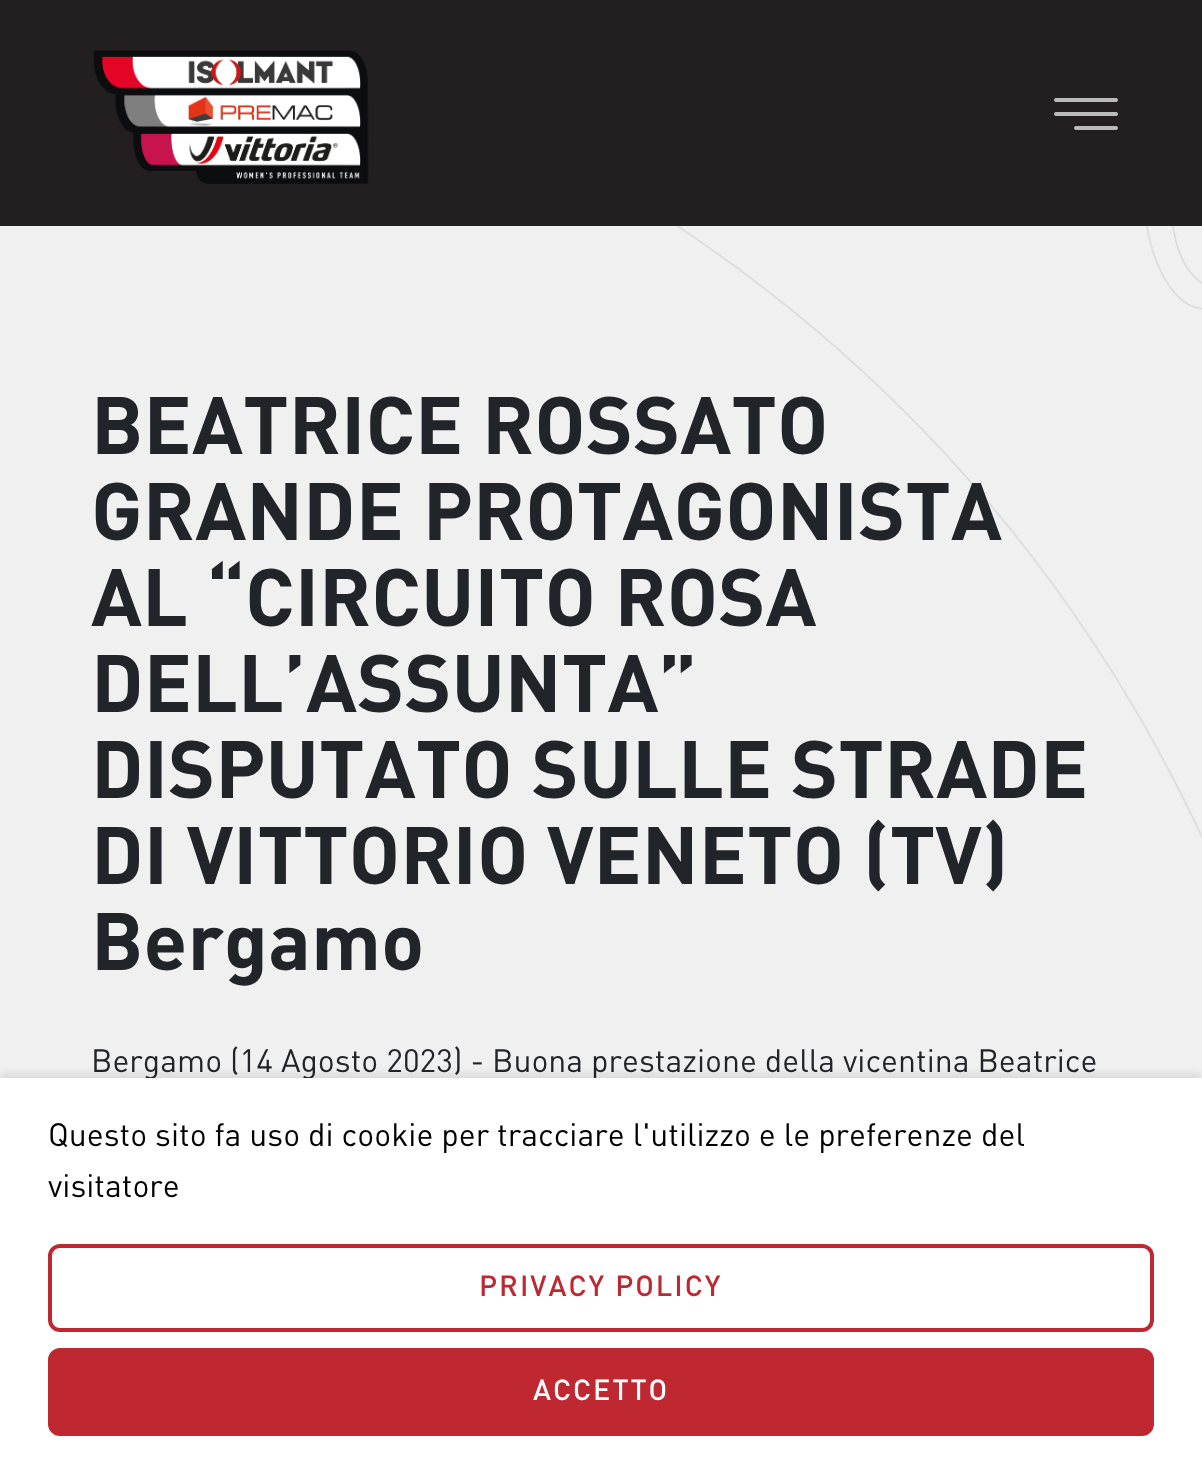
async function draw(canvas) {
	canvas.width = 1202;
	canvas.height = 1467;
	const c = canvas.getContext('2d');
	c.miterLimit = 4;
	c.fontKerning = 'normal';
	async function loadImage(src) {
		const img = new Image();
		img.src = src;
		await img.decode();
		return img;
	}

	c.fillStyle = '#f0f0f0';
	c.fillRect(0, 0, 1202, 1467);
	c.drawImage(await loadImage('img1.png'), 676, 226, 526, 612);
	c.fillStyle = '#231f20';
	c.fillRect(0, 0, 1202, 226);
	c.drawImage(await loadImage('img2.png'), 93, 50, 276, 134);
	c.drawImage(await loadImage('img3.png'), 1054, 98, 64, 32);
	c.font = 'bold 80px DIN';
	c.fillStyle = '#212529';
	for (const [text, x, y] of [
		['BEATRICE ROSSATO', 91, 454],
		['GRANDE PROTAGONISTA', 91, 540],
		['AL “CIRCUITO ROSA', 91, 626],
		['DELL’ASSUNTA”', 91, 712],
		['DISPUTATO SULLE STRADE', 91, 798],
		['DI VITTORIO VENETO (TV)', 91, 884],
		['Bergamo', 91, 970],
	]) {
		c.fillText(text, x, y);
	}
	c.font = '32px DIN';
	c.fillText('Bergamo (14 Agosto 2023) - Buona prestazione della vicentina Beatrice', 91, 1072);
	c.fillStyle = '#0000001a';
	c.filter = 'blur(4px)';
	c.beginPath();
	c.rect(0, 1074, 1202, 390);
	c.fill();
	c.filter = 'none';
	c.fillStyle = '#fff';
	c.fillRect(0, 1078, 1202, 389);
	c.fillStyle = '#000';
	c.fillText('Questo sito fa uso di cookie per tracciare l\'utilizzo e le preferenze del', 48, 1146);
	c.fillText('visitatore', 48, 1197);
	c.beginPath();
	c.roundRect(50, 1246, 1102, 84, 10);
	c.strokeStyle = '#bf2831';
	c.lineWidth = 4;
	c.stroke();
	c.letterSpacing = '2px';
	c.font = '500 28.75px DIN';
	c.fillStyle = '#bf2831';
	c.fillText('PRIVACY POLICY', 479, 1296);
	c.beginPath();
	c.roundRect(50, 1350, 1102, 84, 10);
	c.fill();
	c.stroke();
	c.fillStyle = '#fff';
	c.fillText('ACCETTO', 533, 1400);
}

draw(document.querySelector('canvas'));
